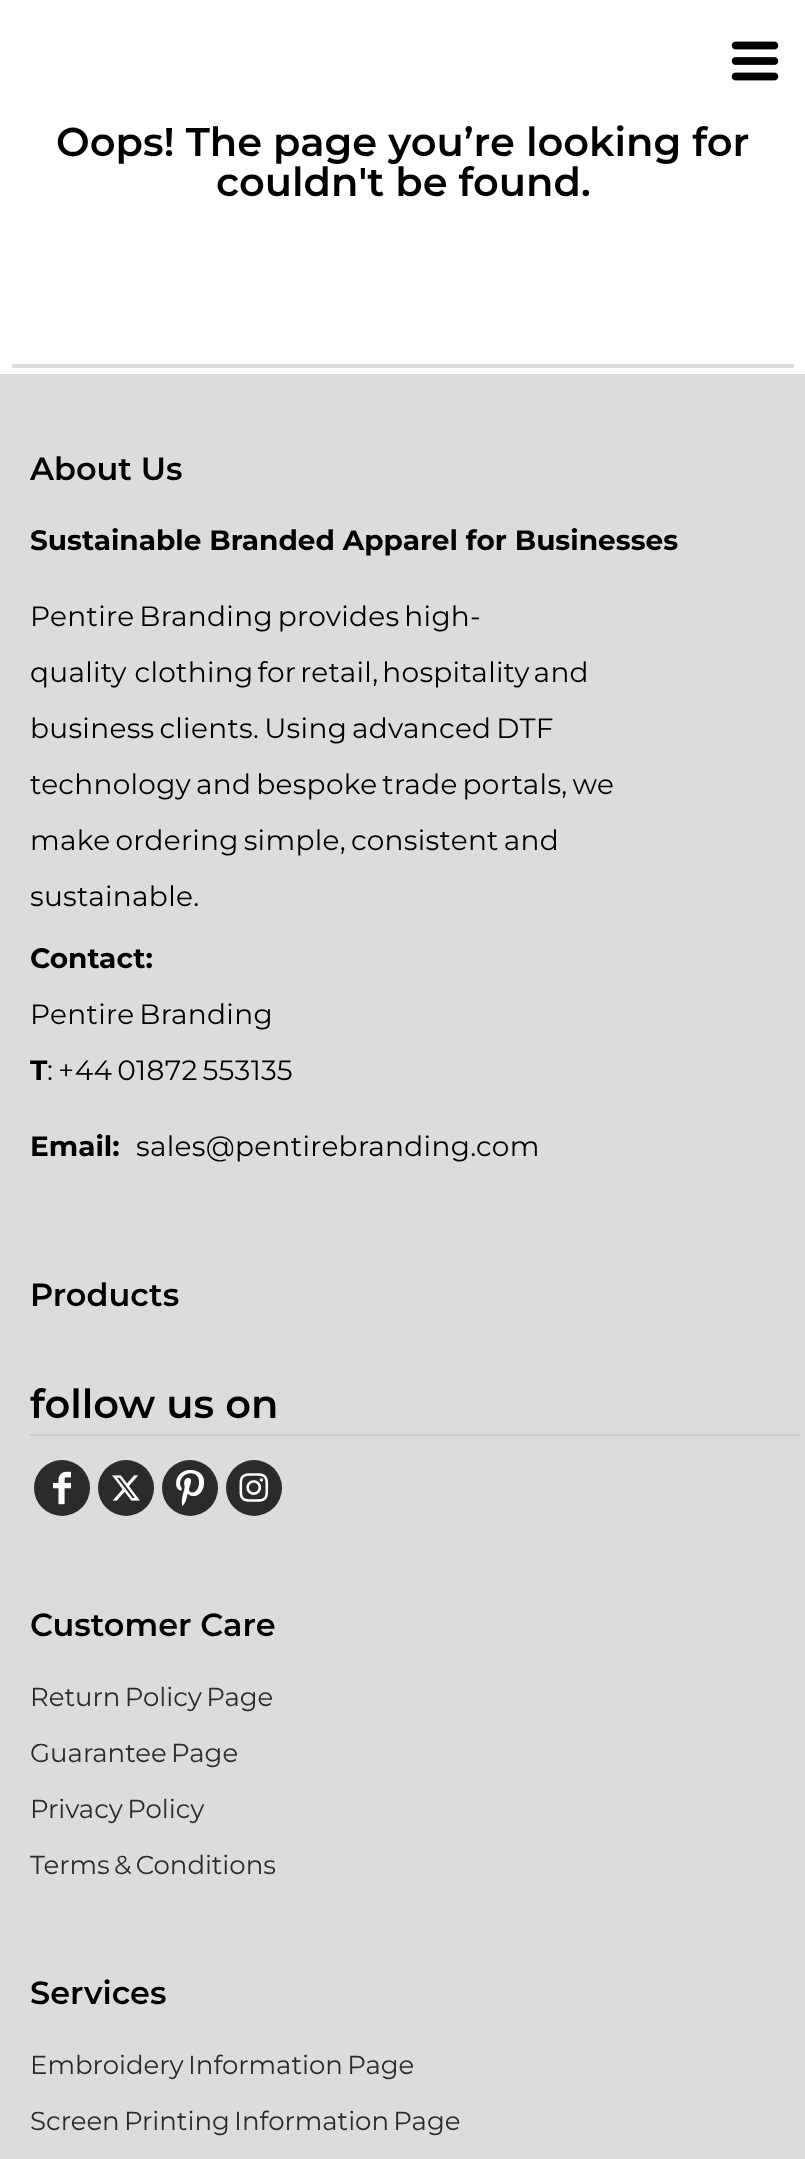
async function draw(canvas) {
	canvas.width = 805;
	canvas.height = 2159;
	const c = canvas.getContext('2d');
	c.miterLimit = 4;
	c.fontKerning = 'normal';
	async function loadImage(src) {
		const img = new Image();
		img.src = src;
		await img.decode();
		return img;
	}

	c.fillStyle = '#fff';
	c.fillRect(0, 0, 805, 2159);
	c.drawImage(await loadImage('img1.png'), 731, 41, 48, 40);
	c.font = '600 40px Montserrat';
	c.fillStyle = '#000';
	c.fillText('Oops! The page you’re looking for', 56, 156);
	c.fillText('couldn\'t be found.', 216, 196);
	c.fillStyle = '#dcdcdc';
	c.fillRect(12, 364, 782, 4);
	c.fillRect(0, 374, 805, 1785);
	c.font = '600 32px Montserrat';
	c.fillStyle = '#000';
	c.fillText('About Us', 30, 480);
	c.font = 'bold 28px Montserrat';
	c.fillText('Sustainable Branded Apparel for Businesses', 30, 550);
	c.letterSpacing = '0.3px';
	c.wordSpacing = '-2.75px';
	c.font = '28px Montserrat';
	c.fillText('Pentire Branding provides high-', 30, 626);
	c.wordSpacing = '-3.75px';
	c.fillText('quality  clothing for retail, hospitality and', 30, 682);
	c.wordSpacing = '-2.75px';
	for (const [text, x, y] of [
		['business clients. Using advanced DTF', 30, 738],
		['technology and bespoke trade portals, we', 30, 794],
		['make ordering simple, consistent and', 30, 850],
	]) {
		c.fillText(text, x, y);
	}
	c.wordSpacing = '0px';
	c.fillText('sustainable.', 30, 906);
	c.letterSpacing = '0px';
	c.font = 'bold 28px Montserrat';
	c.fillText('Contact:', 30, 968);
	c.letterSpacing = '0.3px';
	c.wordSpacing = '-2.75px';
	c.font = '28px Montserrat';
	c.fillText('Pentire Branding', 30, 1024);
	c.letterSpacing = '0px';
	c.wordSpacing = '0px';
	c.font = 'bold 28px Montserrat';
	c.fillText('T', 30, 1080);
	c.letterSpacing = '0.3px';
	c.wordSpacing = '-2.75px';
	c.font = '28px Montserrat';
	c.fillText(': +44 01872 553135', 47, 1080);
	c.letterSpacing = '0px';
	c.wordSpacing = '0px';
	c.font = 'bold 28px Montserrat';
	c.fillText('Email:', 30, 1156);
	c.letterSpacing = '0.3px';
	c.font = '28px Montserrat';
	c.fillText('sales@pentirebranding.com', 136, 1156);
	c.letterSpacing = '0px';
	c.font = '600 32px Montserrat';
	c.fillText('Products', 30, 1306);
	c.fillStyle = '#ccc';
	c.fillRect(30, 1434, 770, 2);
	c.font = '600 40px Montserrat';
	c.fillStyle = '#000';
	c.fillText('follow us on', 30, 1418);
	c.fillStyle = '#2b2b2b';
	c.beginPath();
	c.arc(62, 1488, 28, 0, 2 * Math.PI);
	c.fill();
	c.drawImage(await loadImage('img2.png'), 53, 1471, 18, 34);
	c.beginPath();
	c.arc(126, 1488, 28, 0, 2 * Math.PI);
	c.fill();
	c.drawImage(await loadImage('img3.png'), 112, 1475, 28, 26);
	c.beginPath();
	c.arc(190, 1488, 28, 0, 2 * Math.PI);
	c.fill();
	c.drawImage(await loadImage('img4.png'), 176, 1470, 29, 36);
	c.beginPath();
	c.arc(254, 1488, 28, 0, 2 * Math.PI);
	c.fill();
	c.drawImage(await loadImage('img5.png'), 239, 1473, 30, 29);
	c.font = '600 32px Montserrat';
	c.fillStyle = '#000';
	c.fillText('Customer Care', 30, 1636);
	c.wordSpacing = '-2.5px';
	c.font = '26px Montserrat';
	c.fillStyle = '#2b2b2b';
	for (const [text, x, y] of [
		['Return Policy Page', 30, 1706],
		['Guarantee Page', 30, 1762],
		['Privacy Policy', 30, 1818],
		['Terms & Conditions', 30, 1874],
	]) {
		c.fillText(text, x, y);
	}
	c.wordSpacing = '0px';
	c.font = '600 32px Montserrat';
	c.fillStyle = '#000';
	c.fillText('Services', 30, 2004);
	c.wordSpacing = '-2.5px';
	c.font = '26px Montserrat';
	c.fillStyle = '#2b2b2b';
	c.fillText('Embroidery Information Page', 30, 2074);
	c.fillText('Screen Printing Information Page', 30, 2130);
}

draw(document.querySelector('canvas'));
